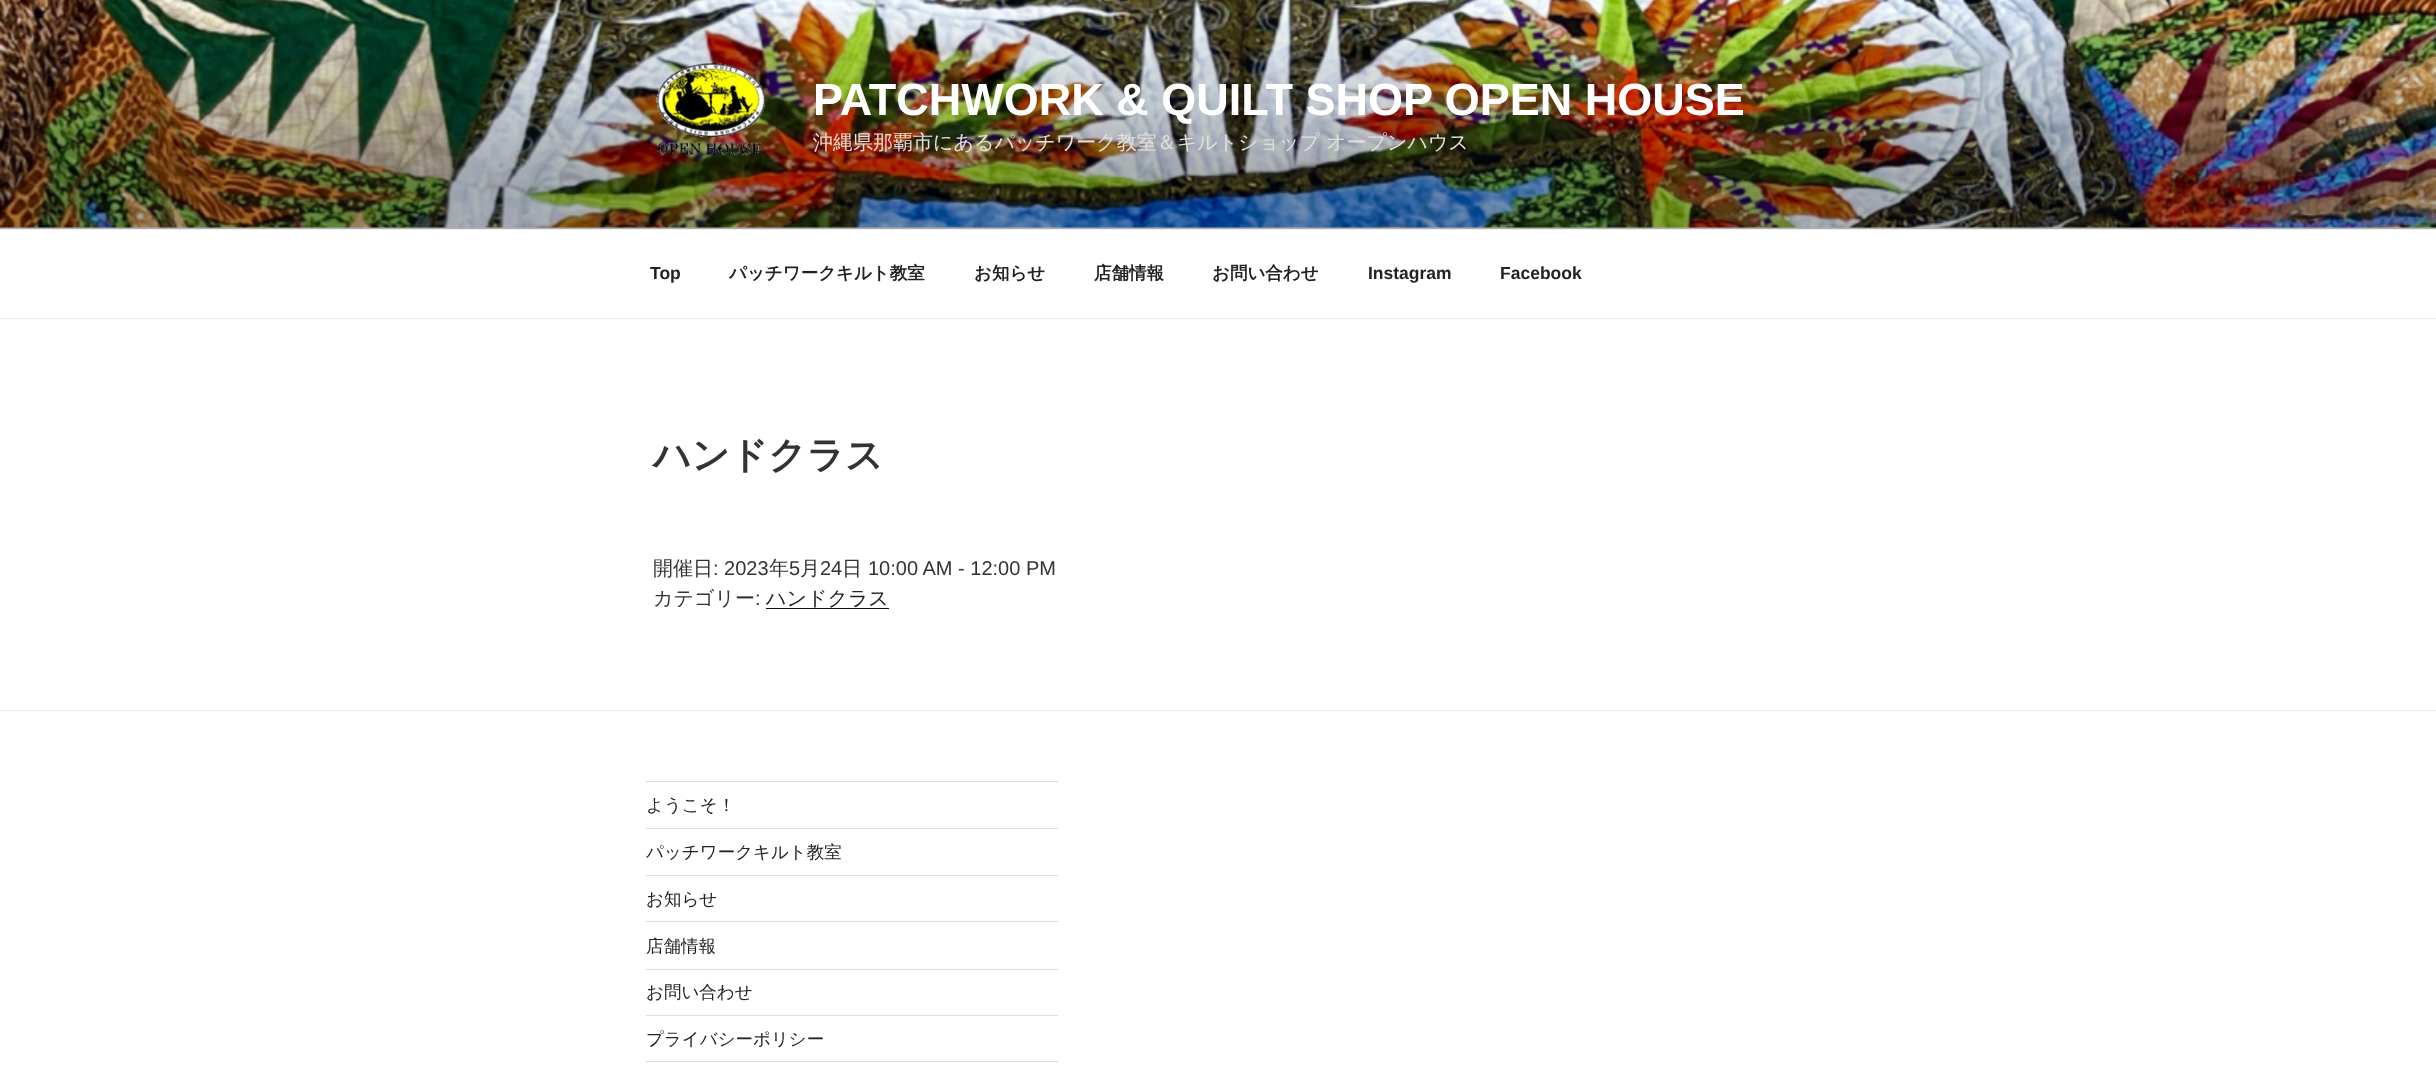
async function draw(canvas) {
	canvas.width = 2436;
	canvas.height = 1066;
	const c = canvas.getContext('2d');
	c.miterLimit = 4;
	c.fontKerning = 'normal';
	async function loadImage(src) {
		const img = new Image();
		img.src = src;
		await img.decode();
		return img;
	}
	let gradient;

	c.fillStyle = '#fff';
	c.fillRect(0, 0, 2436, 1066);
	c.fillStyle = '#fafafa';
	c.fillRect(0, 227, 2436, 2);
	c.drawImage(await loadImage('img1.png'), 0, 0, 2436, 228);
	gradient = c.createLinearGradient(1218, 0, 1218, 229);
	gradient.addColorStop(0, '#00000000');
	gradient.addColorStop(0.75, '#0000004d');
	gradient.addColorStop(1, '#0000004d');
	c.fillStyle = gradient;
	c.fillRect(0, 12, 2436, 217);
	c.drawImage(await loadImage('img2.png'), 656, 63, 110, 93);
	c.font = 'bold 45px Liberation Sans';
	c.fillStyle = '#fff';
	c.fillText('PATCHWORK & QUILT SHOP OPEN HOUSE', 813, 115);
	c.font = '500 20px WenQuanYi Zen Hei';
	c.fillStyle = '#e5dfdb';
	c.fillText('沖縄県那覇市にあるパッチワーク教室＆キルトショップ オープンハウス', 813, 149);
	c.fillStyle = '#eee';
	c.fillRect(0, 229, 2436, 1);
	c.fillRect(0, 318, 2436, 1);
	c.font = 'bold 17.5px Liberation Sans';
	c.fillStyle = '#222';
	c.fillText('Top', 650, 279);
	c.font = 'bold 17.5px WenQuanYi Zen Hei';
	for (const [text, x, y] of [
		['パッチワークキルト教室', 729, 279],
		['お知らせ', 974, 279],
		['店舗情報', 1094, 279],
		['お問い合わせ', 1212, 279],
	]) {
		c.fillText(text, x, y);
	}
	c.font = 'bold 17.5px Liberation Sans';
	c.fillText('Instagram', 1368, 279);
	c.fillText('Facebook', 1500, 279);
	c.font = 'bold 37.5px WenQuanYi Zen Hei';
	c.fillStyle = '#333';
	c.fillText('ハンドクラス', 653, 468);
	c.font = '500 20px WenQuanYi Zen Hei';
	c.fillText('開催日', 653, 575);
	c.font = '20px Liberation Sans';
	c.fillText(': 2023', 713, 575);
	c.font = '500 20px WenQuanYi Zen Hei';
	c.fillText('年', 769, 575);
	c.font = '20px Liberation Sans';
	c.fillText('5', 789, 575);
	c.font = '500 20px WenQuanYi Zen Hei';
	c.fillText('月', 800, 575);
	c.font = '20px Liberation Sans';
	c.fillText('24', 820, 575);
	c.font = '500 20px WenQuanYi Zen Hei';
	c.fillText('日', 842, 575);
	c.font = '20px Liberation Sans';
	c.fillText('10:00 AM - 12:00 PM', 868, 575);
	c.font = '500 20px WenQuanYi Zen Hei';
	c.fillText('カテゴリー', 653, 605);
	c.font = '20px Liberation Sans';
	c.fillText(':', 755, 605);
	c.font = '500 20px WenQuanYi Zen Hei';
	c.fillStyle = '#222';
	c.fillText('ハンドクラス', 766, 605);
	for (const [x, y, w, h, color] of [
		[766, 608, 123, 1, '#0f0f0f'],
		[0, 710, 2436, 1, '#eee'],
		[646, 781, 412, 1, '#ddd'],
		[646, 828, 412, 1, '#ddd'],
	]) {
		c.fillStyle = color;
		c.fillRect(x, y, w, h);
	}
	c.font = '500 17.5px WenQuanYi Zen Hei';
	c.fillStyle = '#222';
	c.fillText('ようこそ！', 646, 811);
	c.fillStyle = '#ddd';
	c.fillRect(646, 875, 412, 1);
	c.fillStyle = '#222';
	c.fillText('パッチワークキルト教室', 646, 858);
	c.fillStyle = '#ddd';
	c.fillRect(646, 921, 412, 1);
	c.fillStyle = '#222';
	c.fillText('お知らせ', 646, 905);
	c.fillStyle = '#ddd';
	c.fillRect(646, 969, 412, 1);
	c.fillStyle = '#222';
	c.fillText('店舗情報', 646, 952);
	c.fillStyle = '#ddd';
	c.fillRect(646, 1015, 412, 1);
	c.fillStyle = '#222';
	c.fillText('お問い合わせ', 646, 998);
	c.fillStyle = '#ddd';
	c.fillRect(646, 1061, 412, 1);
	c.fillStyle = '#222';
	c.fillText('プライバシーポリシー', 646, 1045);
}

draw(document.querySelector('canvas'));
